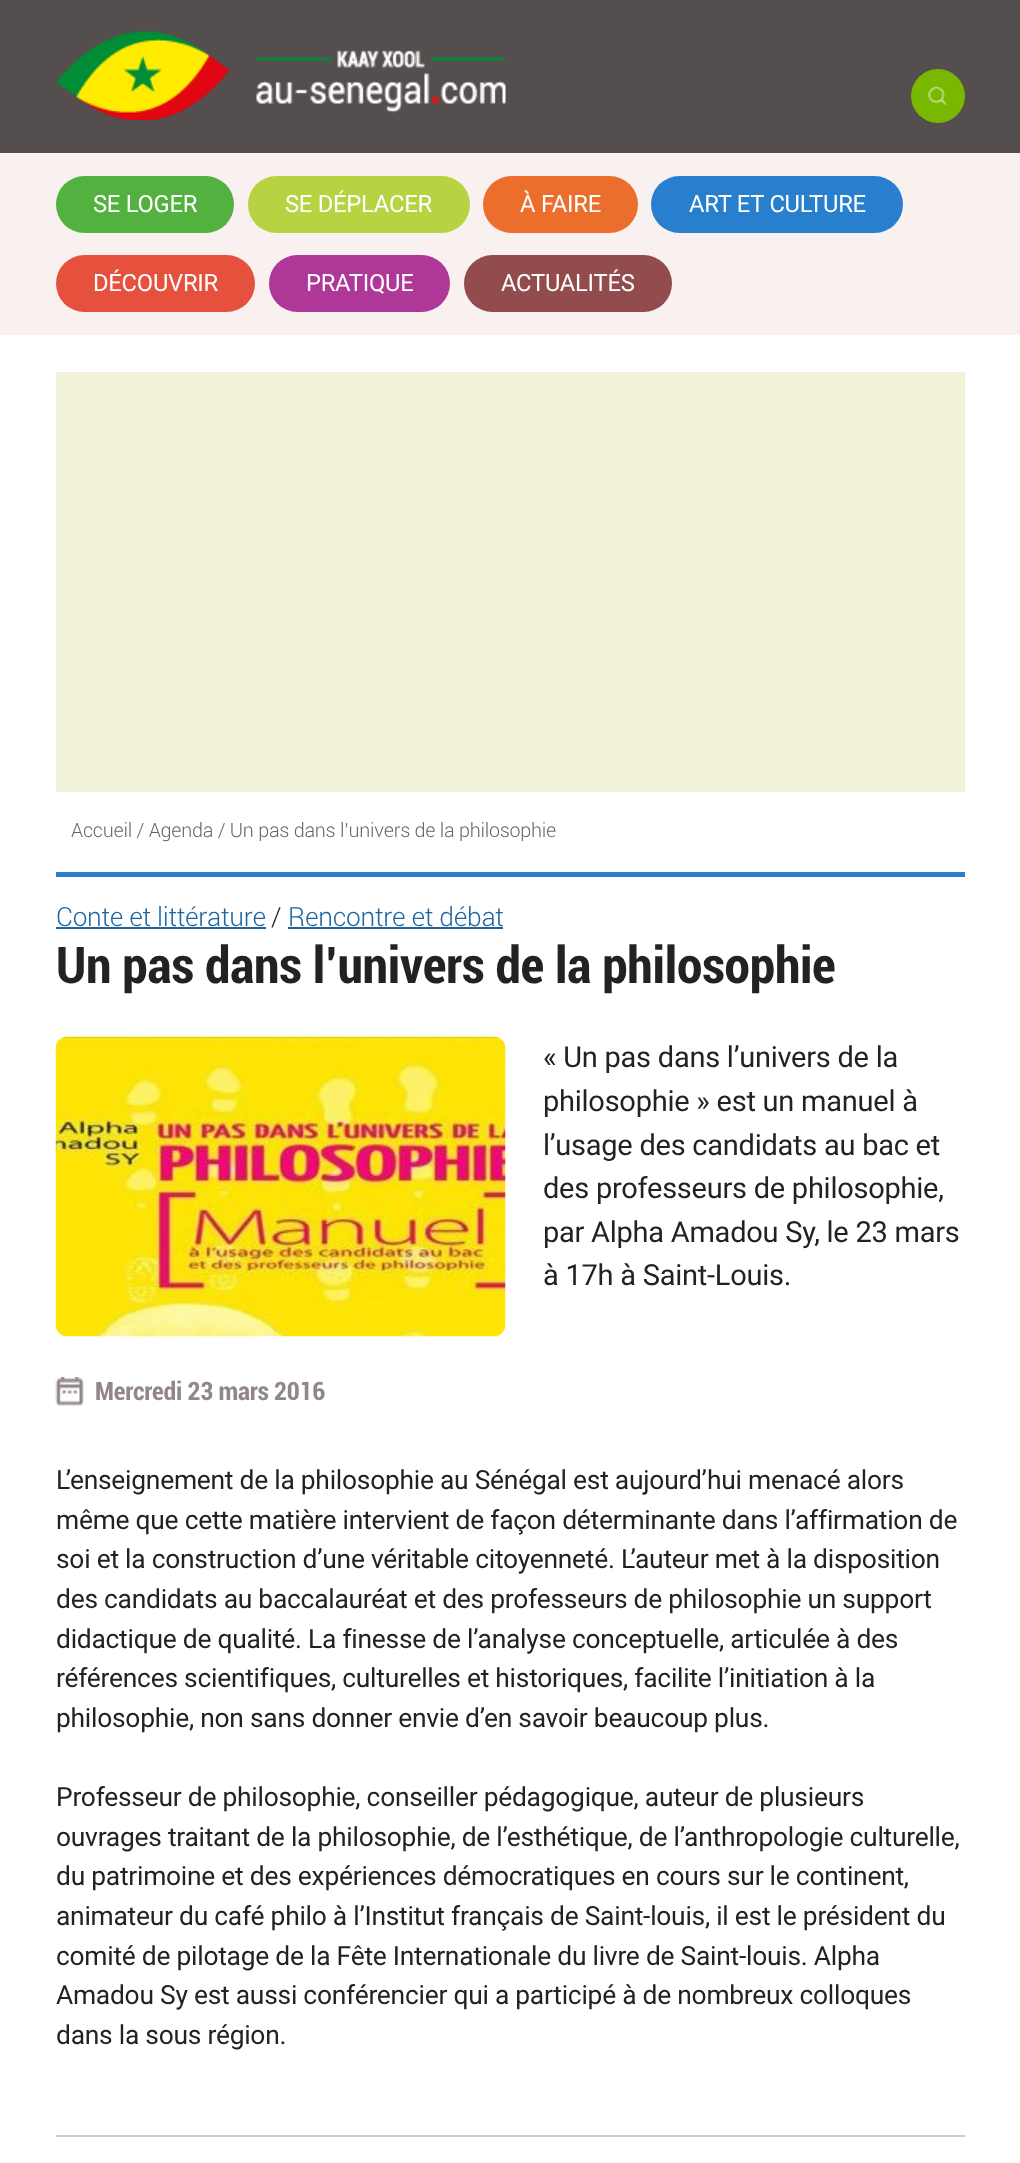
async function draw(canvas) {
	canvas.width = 1020;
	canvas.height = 2163;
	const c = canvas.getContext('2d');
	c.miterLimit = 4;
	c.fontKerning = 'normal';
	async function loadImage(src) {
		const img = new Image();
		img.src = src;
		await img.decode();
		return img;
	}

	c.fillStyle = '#fff';
	c.fillRect(0, 0, 1020, 2163);
	c.fillStyle = '#544f4e';
	c.fillRect(0, 0, 1020, 153);
	c.drawImage(await loadImage('img1.png'), 56, 31, 450, 89);
	c.fillStyle = '#79b700';
	c.beginPath();
	c.arc(938, 96, 27, 0, 2 * Math.PI);
	c.fill();
	c.drawImage(await loadImage('img2.png'), 928, 86, 19, 20);
	c.fillStyle = '#f8f1ef';
	c.fillRect(0, 153, 1020, 182);
	c.fillStyle = '#53b23f';
	c.beginPath();
	c.roundRect(56, 176, 178, 57, 28.5);
	c.fill();
	c.letterSpacing = '-0.25px';
	c.font = '23.75px Roboto';
	c.fillStyle = '#fff';
	c.fillText('SE LOGER', 93, 212);
	c.fillStyle = '#b7d342';
	c.beginPath();
	c.roundRect(248, 176, 222, 57, 28.5);
	c.fill();
	c.fillStyle = '#fff';
	c.fillText('SE DÉPLACER', 285, 212);
	c.fillStyle = '#eb6e2d';
	c.beginPath();
	c.roundRect(483, 176, 155, 57, 28.5);
	c.fill();
	c.fillStyle = '#fff';
	c.fillText('À FAIRE', 520, 212);
	c.fillStyle = '#287fce';
	c.beginPath();
	c.roundRect(651, 176, 252, 57, 28.5);
	c.fill();
	c.fillStyle = '#fff';
	c.fillText('ART ET CULTURE', 689, 212);
	c.fillStyle = '#e6513e';
	c.beginPath();
	c.roundRect(56, 255, 199, 57, 28.5);
	c.fill();
	c.fillStyle = '#fff';
	c.fillText('DÉCOUVRIR', 93, 291);
	c.fillStyle = '#ae3798';
	c.beginPath();
	c.roundRect(269, 255, 181, 57, 28.5);
	c.fill();
	c.fillStyle = '#fff';
	c.fillText('PRATIQUE', 306, 291);
	c.fillStyle = '#934c4d';
	c.beginPath();
	c.roundRect(464, 255, 208, 57, 28.5);
	c.fill();
	c.fillStyle = '#fff';
	c.fillText('ACTUALITÉS', 501, 291);
	c.fillStyle = '#f2f2d9';
	c.fillRect(56, 372, 909, 420);
	c.font = '300 19.8px Roboto';
	c.fillStyle = '#666';
	c.fillText('Accueil / Agenda / Un pas dans l’univers de la philosophie', 71, 837);
	c.fillStyle = '#287fce';
	c.fillRect(56, 872, 909, 5);
	c.font = '300 26.4px Roboto';
	c.fillStyle = '#1e65a0';
	c.fillText('Conte et littérature', 56, 926);
	c.fillRect(56, 927, 210, 2);
	c.fillStyle = '#222';
	c.fillText('/', 271, 926);
	c.fillStyle = '#1e65a0';
	c.fillText('Rencontre et débat', 288, 926);
	c.fillRect(288, 927, 215, 2);
	c.font = 'bold 52.75px Roboto';
	c.fillStyle = '#222';
	c.fillText('Un pas dans l’univers de la philosophie', 56, 983);
	c.drawImage(await loadImage('img3.png'), 55, 1036, 451, 301);
	c.font = '29px Roboto';
	for (const [text, x, y] of [
		['« Un pas dans l’univers de la', 543, 1067],
		['philosophie » est un manuel à', 543, 1111],
		['l’usage des candidats au bac et', 543, 1155],
		['des professeurs de philosophie,', 543, 1198],
		['par Alpha Amadou Sy, le 23 mars', 543, 1242],
		['à 17h à Saint-Louis.', 543, 1285],
	]) {
		c.fillText(text, x, y);
	}
	c.drawImage(await loadImage('img4.png'), 55, 1377, 29, 29);
	c.font = 'bold 26.4px Roboto';
	c.fillStyle = '#928787';
	c.fillText('Mercredi 23 mars 2016', 95, 1400);
	c.font = '26.4px "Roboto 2"';
	c.fillStyle = '#222';
	for (const [text, x, y] of [
		['L’enseignement de la philosophie au Sénégal est aujourd’hui menacé alors', 56, 1489],
		['même que cette matière intervient de façon déterminante dans l’affirmation de', 56, 1529],
		['soi et la construction d’une véritable citoyenneté. L’auteur met à la disposition', 56, 1568],
		['des candidats au baccalauréat et des professeurs de philosophie un support', 56, 1608],
		['didactique de qualité. La finesse de l’analyse conceptuelle, articulée à des', 56, 1648],
		['références scientifiques, culturelles et historiques, facilite l’initiation à la', 56, 1687],
		['philosophie, non sans donner envie d’en savoir beaucoup plus.', 56, 1727],
		['Professeur de philosophie, conseiller pédagogique, auteur de plusieurs', 56, 1806],
		['ouvrages traitant de la philosophie, de l’esthétique, de l’anthropologie culturelle,', 56, 1846],
		['du patrimoine et des expériences démocratiques en cours sur le continent,', 56, 1885],
		['animateur du café philo à l’Institut français de Saint-louis, il est le président du', 56, 1925],
		['comité de pilotage de la Fête Internationale du livre de Saint-louis. Alpha', 56, 1965],
		['Amadou Sy est aussi conférencier qui a participé à de nombreux colloques', 56, 2004],
		['dans la sous région.', 56, 2044],
	]) {
		c.fillText(text, x, y);
	}
	c.fillStyle = '#ccc';
	c.fillRect(56, 2135, 909, 2);
}

draw(document.querySelector('canvas'));
